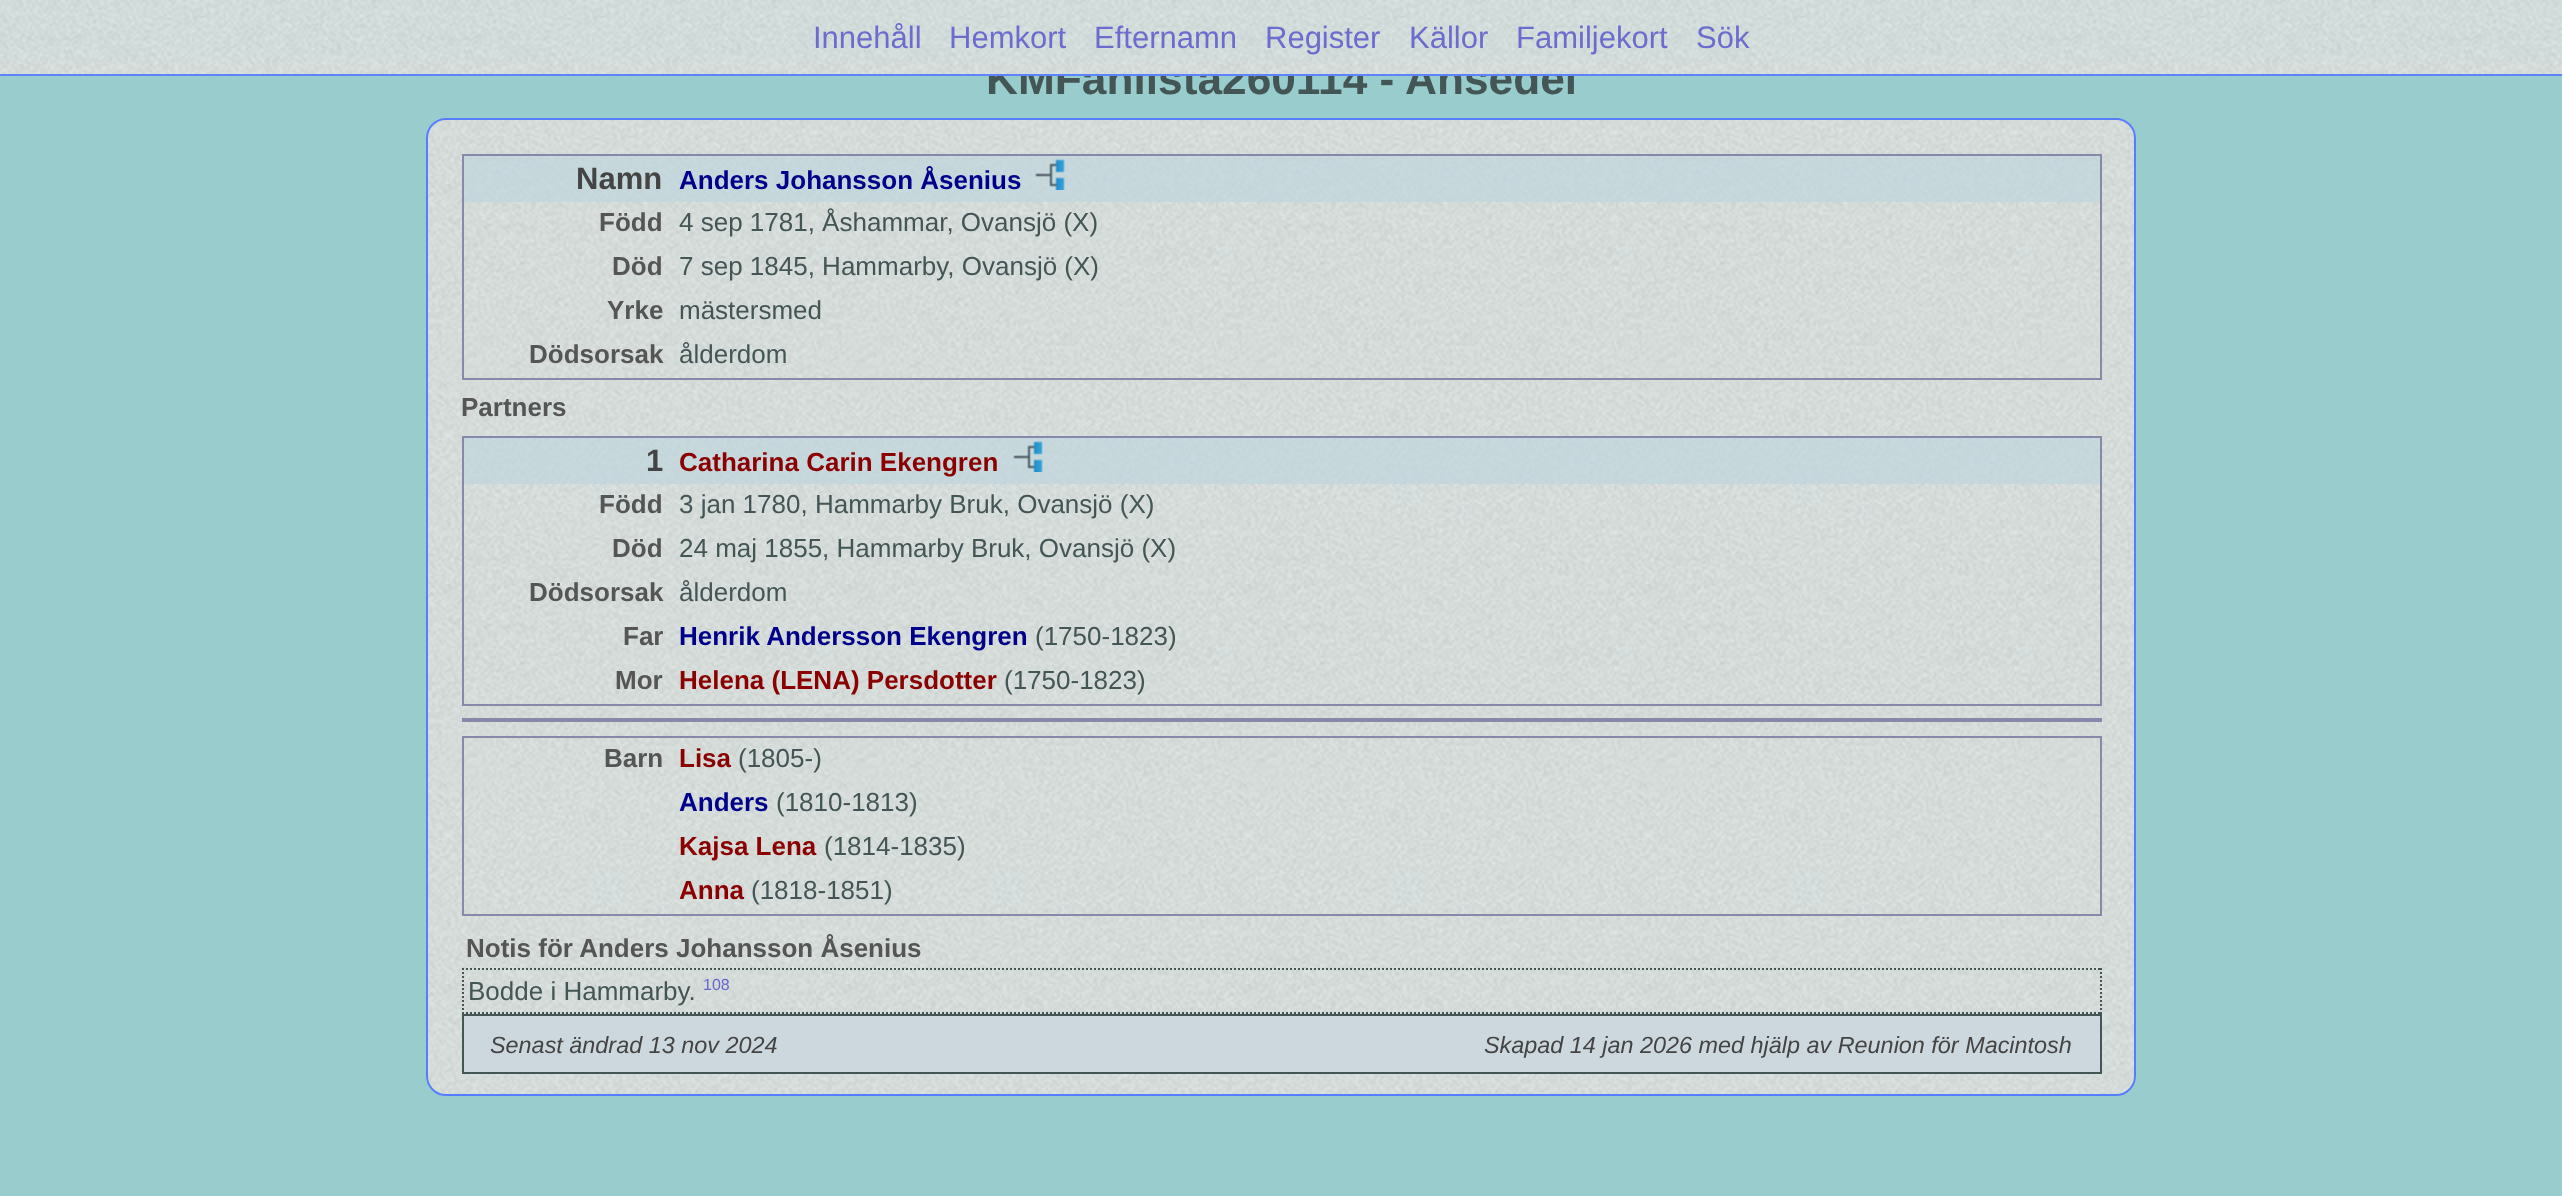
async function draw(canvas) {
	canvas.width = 2562;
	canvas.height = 1196;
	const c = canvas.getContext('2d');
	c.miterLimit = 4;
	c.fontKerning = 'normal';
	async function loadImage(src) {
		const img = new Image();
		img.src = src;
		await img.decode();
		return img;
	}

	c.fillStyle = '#9cc';
	c.fillRect(0, 0, 2562, 1196);
	c.font = 'bold 44.25px Liberation Sans';
	c.fillStyle = '#455';
	c.fillText('KMFanlista260114 - Ansedel', 986, 94);
	c.drawImage(await loadImage('img1.png'), 0, 0, 2562, 76);
	c.drawImage(await loadImage('img2.png'), 0, 62, 2562, 14);
	c.fillStyle = '#567efcf2';
	c.fillRect(0, 74, 2562, 2);
	c.font = '31px Liberation Sans';
	c.fillStyle = '#6b6ccd';
	for (const [text, x, y] of [
		['Innehåll', 813, 48],
		['Hemkort', 949, 48],
		['Efternamn', 1094, 48],
		['Register', 1265, 48],
		['Källor', 1409, 48],
		['Familjekort', 1516, 48],
		['Sök', 1696, 48],
	]) {
		c.fillText(text, x, y);
	}
	c.drawImage(await loadImage('img3.png'), 426, 118, 1710, 978);
	c.beginPath();
	c.roundRect(427, 119, 1708, 976, 19);
	c.strokeStyle = '#567efc';
	c.lineWidth = 2;
	c.stroke();
	c.strokeStyle = '#88a';
	c.strokeRect(463, 155, 1638, 224);
	c.fillStyle = '#bfd6ddb3';
	c.fillRect(464, 156, 1636, 46);
	c.font = 'bold 31px Liberation Sans';
	c.fillStyle = '#444';
	c.fillText('Namn', 576, 189);
	c.font = 'bold 26px Liberation Sans';
	c.fillStyle = '#00008b';
	c.fillText('Anders Johansson Åsenius', 679, 189);
	c.drawImage(await loadImage('img4.png'), 1035, 159, 30, 31);
	c.fillStyle = '#555';
	c.fillText('Född', 599, 231);
	c.font = '26px Liberation Sans';
	c.fillStyle = '#455';
	c.fillText('4 sep 1781, Åshammar, Ovansjö (X)', 679, 231);
	c.font = 'bold 26px Liberation Sans';
	c.fillStyle = '#555';
	c.fillText('Död', 612, 275);
	c.font = '26px Liberation Sans';
	c.fillStyle = '#455';
	c.fillText('7 sep 1845, Hammarby, Ovansjö (X)', 679, 275);
	c.font = 'bold 26px Liberation Sans';
	c.fillStyle = '#555';
	c.fillText('Yrke', 607, 319);
	c.font = '26px Liberation Sans';
	c.fillStyle = '#455';
	c.fillText('mästersmed', 679, 319);
	c.font = 'bold 26px Liberation Sans';
	c.fillStyle = '#555';
	c.fillText('Dödsorsak', 529, 363);
	c.font = '26px Liberation Sans';
	c.fillStyle = '#455';
	c.fillText('ålderdom', 679, 363);
	c.font = 'bold 26px Liberation Sans';
	c.fillStyle = '#555';
	c.fillText('Partners', 461, 416);
	c.strokeRect(463, 437, 1638, 268);
	c.fillStyle = '#bfd6ddb3';
	c.fillRect(464, 438, 1636, 46);
	c.font = 'bold 31px Liberation Sans';
	c.fillStyle = '#444';
	c.fillText('1', 646, 471);
	c.font = 'bold 26px Liberation Sans';
	c.fillStyle = '#8b0000';
	c.fillText('Catharina Carin Ekengren', 679, 471);
	c.drawImage(await loadImage('img5.png'), 1013, 441, 30, 31);
	c.fillStyle = '#555';
	c.fillText('Född', 599, 513);
	c.font = '26px Liberation Sans';
	c.fillStyle = '#455';
	c.fillText('3 jan 1780, Hammarby Bruk, Ovansjö (X)', 679, 513);
	c.font = 'bold 26px Liberation Sans';
	c.fillStyle = '#555';
	c.fillText('Död', 612, 557);
	c.font = '26px Liberation Sans';
	c.fillStyle = '#455';
	c.fillText('24 maj 1855, Hammarby Bruk, Ovansjö (X)', 679, 557);
	c.font = 'bold 26px Liberation Sans';
	c.fillStyle = '#555';
	c.fillText('Dödsorsak', 529, 601);
	c.font = '26px Liberation Sans';
	c.fillStyle = '#455';
	c.fillText('ålderdom', 679, 601);
	c.font = 'bold 26px Liberation Sans';
	c.fillStyle = '#555';
	c.fillText('Far', 623, 645);
	c.fillStyle = '#00008b';
	c.fillText('Henrik Andersson Ekengren', 679, 645);
	c.font = '26px Liberation Sans';
	c.fillStyle = '#455';
	c.fillText('(1750-1823)', 1035, 645);
	c.font = 'bold 26px Liberation Sans';
	c.fillStyle = '#555';
	c.fillText('Mor', 615, 689);
	c.fillStyle = '#8b0000';
	c.fillText('Helena (LENA) Persdotter', 679, 689);
	c.font = '26px Liberation Sans';
	c.fillStyle = '#455';
	c.fillText('(1750-1823)', 1004, 689);
	c.fillStyle = '#88a';
	c.fillRect(462, 718, 1640, 4);
	c.strokeRect(463, 737, 1638, 178);
	c.font = 'bold 26px Liberation Sans';
	c.fillStyle = '#555';
	c.fillText('Barn', 604, 767);
	c.fillStyle = '#8b0000';
	c.fillText('Lisa', 679, 767);
	c.font = '26px Liberation Sans';
	c.fillStyle = '#455';
	c.fillText('(1805-)', 738, 767);
	c.font = 'bold 26px Liberation Sans';
	c.fillStyle = '#00008b';
	c.fillText('Anders', 679, 811);
	c.font = '26px Liberation Sans';
	c.fillStyle = '#455';
	c.fillText('(1810-1813)', 776, 811);
	c.font = 'bold 26px Liberation Sans';
	c.fillStyle = '#8b0000';
	c.fillText('Kajsa Lena', 679, 855);
	c.font = '26px Liberation Sans';
	c.fillStyle = '#455';
	c.fillText('(1814-1835)', 824, 855);
	c.font = 'bold 26px Liberation Sans';
	c.fillStyle = '#8b0000';
	c.fillText('Anna', 679, 899);
	c.font = '26px Liberation Sans';
	c.fillStyle = '#455';
	c.fillText('(1818-1851)', 751, 899);
	c.font = 'bold 26px Liberation Sans';
	c.fillStyle = '#555';
	c.fillText('Notis för Anders Johansson Åsenius', 466, 957);
	c.beginPath();
	c.moveTo(462, 969);
	c.lineTo(2102, 969);
	c.strokeStyle = '#455';
	c.setLineDash([2, 2]);
	c.stroke();
	c.beginPath();
	c.moveTo(2101, 968);
	c.lineTo(2101, 1014);
	c.stroke();
	c.beginPath();
	c.moveTo(462, 1013);
	c.lineTo(2102, 1013);
	c.stroke();
	c.beginPath();
	c.moveTo(463, 968);
	c.lineTo(463, 1014);
	c.stroke();
	c.font = '26px Liberation Sans';
	c.fillStyle = '#455';
	c.fillText('Bodde i Hammarby.', 468, 1000);
	c.font = '16px Liberation Sans';
	c.fillStyle = '#66c';
	c.fillText('108', 703, 990);
	c.fillStyle = '#cdd8de';
	c.beginPath();
	c.rect(463, 1015, 1638, 58);
	c.fill();
	c.setLineDash([]);
	c.stroke();
	c.font = 'italic 23.4px Liberation Sans';
	c.fillStyle = '#444';
	c.fillText('Senast ändrad 13 nov 2024', 490, 1053);
	c.fillText('Skapad 14 jan 2026 med hjälp av Reunion för Macintosh', 1484, 1053);
}

draw(document.querySelector('canvas'));
